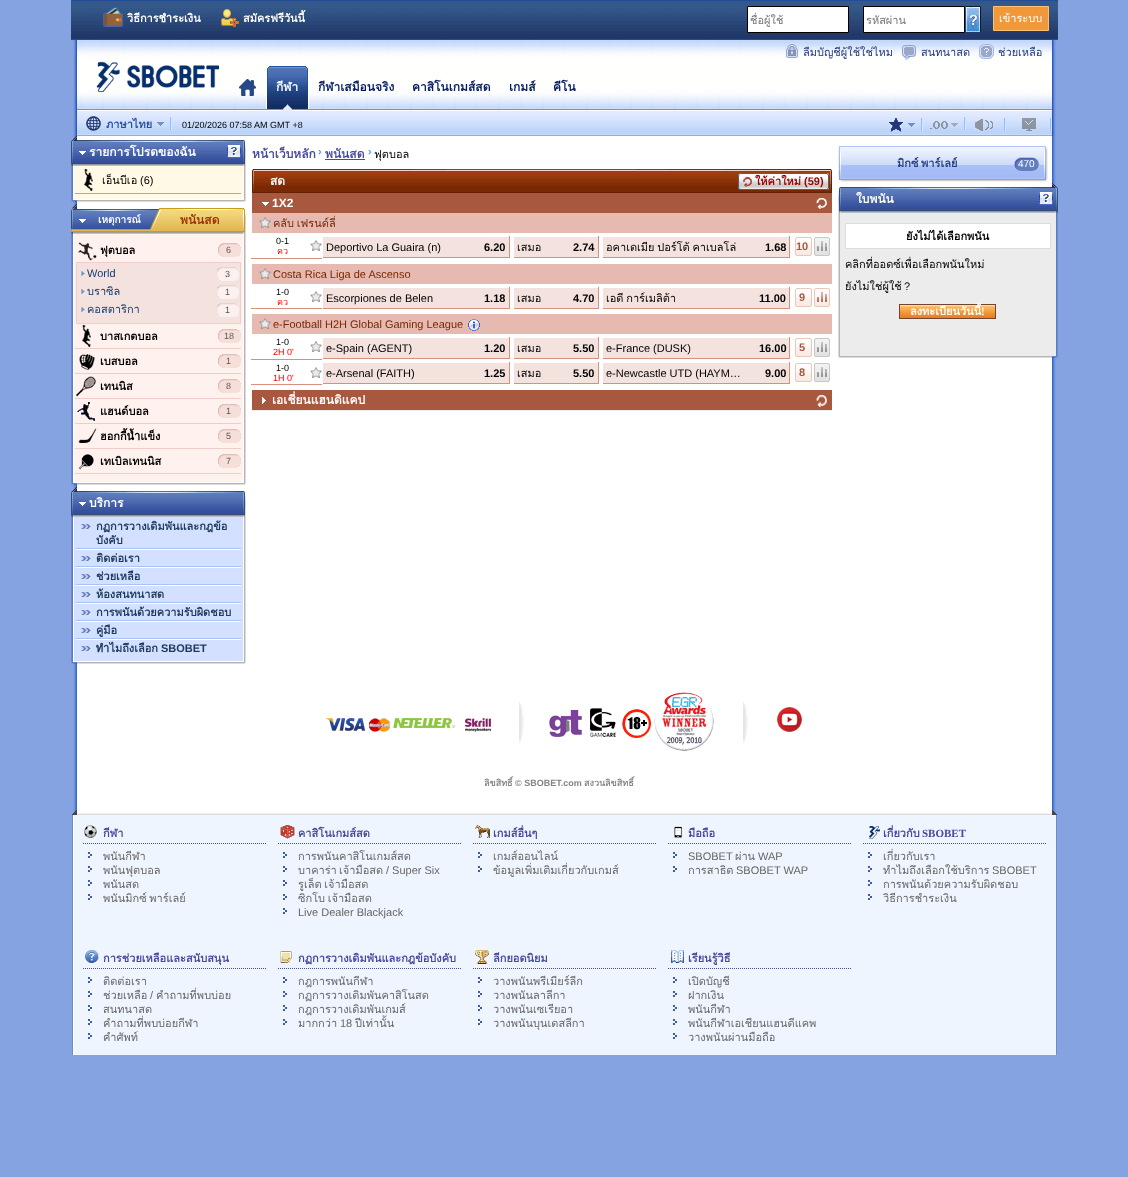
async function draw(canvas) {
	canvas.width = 1128;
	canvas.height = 1177;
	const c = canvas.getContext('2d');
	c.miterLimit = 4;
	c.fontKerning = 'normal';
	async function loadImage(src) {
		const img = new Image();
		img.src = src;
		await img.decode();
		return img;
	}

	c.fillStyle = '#85a3e0';
	c.fillRect(0, 0, 1128, 1177);
	c.drawImage(await loadImage('img1.png'), 71, 0, 987, 40);
	c.drawImage(await loadImage('img2.png'), 103, 7, 20, 20);
	c.font = 'bold 11px Loma';
	c.fillStyle = '#fff';
	c.fillText('วิธีการชำระเงิน', 127, 22);
	c.drawImage(await loadImage('img3.png'), 221, 9, 18, 18);
	c.fillText('สมัครฟรีวันนี้', 243, 22);
	c.beginPath();
	c.rect(747.5, 6.5, 101, 26);
	c.fill();
	c.strokeStyle = '#000';
	c.stroke();
	c.save();
	c.beginPath();
	c.rect(750, 11, 96, 18);
	c.clip();
	c.font = '11px Loma';
	c.fillStyle = '#757575';
	c.fillText('ชื่อผู้ใช้', 750, 24);
	c.restore();
	c.beginPath();
	c.rect(863.5, 6.5, 101, 26);
	c.fill();
	c.stroke();
	c.font = '11px Loma';
	c.fillStyle = '#757575';
	c.fillText('รหัสผ่าน', 866, 24);
	c.drawImage(await loadImage('img4.png'), 966, 6, 15, 26);
	c.fillStyle = '#f1983b';
	c.beginPath();
	c.rect(993.5, 6.5, 55, 24);
	c.fill();
	c.strokeStyle = '#fdc271';
	c.stroke();
	c.fillStyle = '#fff';
	c.fillText('เข้าระบบ', 999, 22);
	c.drawImage(await loadImage('img5.png'), 73, 40, 983, 773);
	c.drawImage(await loadImage('img6.png'), 75, 40, 979, 96);
	c.drawImage(await loadImage('img7.png'), 77, 40, 975, 96);
	c.drawImage(await loadImage('img8.png'), 786, 44, 12, 14);
	c.fillStyle = '#223978';
	c.fillText('ลืมบัญชีผู้ใช้ใช่ไหม', 803, 56);
	c.drawImage(await loadImage('img9.png'), 902, 45, 14, 15);
	c.fillText('สนทนาสด', 921, 56);
	c.drawImage(await loadImage('img10.png'), 979, 44, 15, 15);
	c.fillText('ช่วยเหลือ', 998, 56);
	c.drawImage(await loadImage('img11.png'), 96, 61, 124, 32);
	c.drawImage(await loadImage('img12.png'), 239, 79, 17, 17);
	c.drawImage(await loadImage('img13.png'), 266, 66, 4, 43);
	c.drawImage(await loadImage('img14.png'), 270, 66, 34, 43);
	c.font = 'bold 12px Loma';
	c.fillStyle = '#fff';
	c.fillText('กีฬา', 276, 91);
	c.drawImage(await loadImage('img15.png'), 283, 104, 9, 7);
	c.drawImage(await loadImage('img16.png'), 304, 66, 5, 43);
	c.fillStyle = '#00175f';
	for (const [text, x, y] of [
		['กีฬาเสมือนจริง', 318, 91],
		['คาสิโนเกมส์สด', 412, 91],
		['เกมส์', 509, 91],
		['คีโน', 553, 91],
	]) {
		c.fillText(text, x, y);
	}
	c.drawImage(await loadImage('img17.png'), 86, 116, 15, 15);
	c.font = 'bold 11px Loma';
	c.fillStyle = '#274ea0';
	c.fillText('ภาษาไทย', 106, 128);
	c.drawImage(await loadImage('img18.png'), 157, 117, 15, 13);
	c.font = '9px Liberation Sans';
	c.fillStyle = '#000';
	c.fillText('01/20/2026 07:58 AM GMT +8', 182, 128);
	c.drawImage(await loadImage('img19.png'), 889, 118, 34, 14);
	c.drawImage(await loadImage('img20.png'), 930, 117, 36, 13);
	c.drawImage(await loadImage('img21.png'), 975, 118, 31, 14);
	c.drawImage(await loadImage('img22.png'), 1022, 118, 30, 13);
	c.drawImage(await loadImage('img23.png'), 71, 136, 175, 30);
	c.drawImage(await loadImage('img24.png'), 79, 151, 7, 4);
	c.font = 'bold 12px Loma';
	c.fillStyle = '#fff';
	c.fillText('รายการโปรดของฉัน', 89, 156);
	c.drawImage(await loadImage('img25.png'), 227, 145, 14, 13);
	c.fillStyle = '#fff9e5';
	c.fillRect(74, 166, 169, 33);
	c.drawImage(await loadImage('img26.png'), 71, 166, 175, 33);
	c.drawImage(await loadImage('img27.png'), 84, 169, 9, 22);
	c.font = '11px Loma';
	c.fillStyle = '#000';
	c.fillText('เอ็นบีเอ', 102, 184);
	c.font = '11px Liberation Sans';
	c.fillText('(6)', 140, 184);
	c.fillStyle = '#aaa';
	c.fillRect(75, 193, 166, 1);
	c.drawImage(await loadImage('img28.png'), 71, 199, 175, 3);
	c.drawImage(await loadImage('img29.png'), 71, 204, 175, 30);
	c.drawImage(await loadImage('img30.png'), 79, 219, 7, 4);
	c.font = 'bold 10px Loma';
	c.fillStyle = '#fff';
	c.fillText('เหตุการณ์', 98, 223);
	c.font = 'bold 12px Loma';
	c.fillStyle = '#930';
	c.fillText('พนันสด', 180, 224);
	c.fillStyle = '#fff1ee';
	c.fillRect(74, 234, 169, 248);
	c.drawImage(await loadImage('img31.png'), 71, 234, 175, 248);
	c.font = 'bold 11px Loma';
	c.fillStyle = '#000';
	c.fillText('ฟุตบอล', 100, 254);
	c.drawImage(await loadImage('img32.png'), 78, 242, 19, 19);
	c.drawImage(await loadImage('img33.png'), 218, 243, 23, 14);
	c.font = '9px Liberation Sans';
	c.fillStyle = '#555';
	c.fillText('6', 226, 253);
	c.fillStyle = '#f4e2de';
	c.beginPath();
	c.rect(76.5, 262.5, 164, 61);
	c.fill();
	c.strokeStyle = '#eecec7';
	c.stroke();
	c.drawImage(await loadImage('img34.png'), 81, 271, 4, 5);
	c.font = '11px Liberation Sans';
	c.fillStyle = '#133e76';
	c.fillText('World', 87, 277);
	c.drawImage(await loadImage('img35.png'), 217, 267, 22, 14);
	c.font = '9px Liberation Sans';
	c.fillStyle = '#555';
	c.fillText('3', 225, 277);
	c.drawImage(await loadImage('img34.png'), 81, 289, 4, 5);
	c.font = '11px Loma';
	c.fillStyle = '#133e76';
	c.fillText('บราซิล', 87, 295);
	c.drawImage(await loadImage('img35.png'), 217, 285, 22, 14);
	c.font = '9px Liberation Sans';
	c.fillStyle = '#555';
	c.fillText('1', 225, 295);
	c.drawImage(await loadImage('img34.png'), 81, 307, 4, 5);
	c.font = '11px Loma';
	c.fillStyle = '#133e76';
	c.fillText('คอสตาริกา', 87, 313);
	c.drawImage(await loadImage('img35.png'), 217, 303, 22, 14);
	c.font = '9px Liberation Sans';
	c.fillStyle = '#555';
	c.fillText('1', 225, 313);
	c.fillStyle = '#eecec7';
	c.fillRect(75, 348, 166, 1);
	c.drawImage(await loadImage('img36.png'), 82, 325, 9, 22);
	c.font = 'bold 11px Loma';
	c.fillStyle = '#000';
	c.fillText('บาสเกตบอล', 100, 340);
	c.drawImage(await loadImage('img33.png'), 218, 329, 23, 14);
	c.font = '9px Liberation Sans';
	c.fillStyle = '#555';
	c.fillText('18', 224, 339);
	c.fillStyle = '#eecec7';
	c.fillRect(75, 373, 166, 1);
	c.drawImage(await loadImage('img37.png'), 79, 354, 16, 16);
	c.font = 'bold 11px Loma';
	c.fillStyle = '#000';
	c.fillText('เบสบอล', 100, 365);
	c.drawImage(await loadImage('img33.png'), 218, 354, 23, 14);
	c.font = '9px Liberation Sans';
	c.fillStyle = '#555';
	c.fillText('1', 226, 364);
	c.fillStyle = '#eecec7';
	c.fillRect(75, 398, 166, 1);
	c.drawImage(await loadImage('img38.png'), 76, 376, 20, 21);
	c.font = 'bold 11px Loma';
	c.fillStyle = '#000';
	c.fillText('เทนนิส', 100, 390);
	c.drawImage(await loadImage('img33.png'), 218, 379, 23, 14);
	c.font = '9px Liberation Sans';
	c.fillStyle = '#555';
	c.fillText('8', 226, 389);
	c.fillStyle = '#eecec7';
	c.fillRect(75, 423, 166, 1);
	c.drawImage(await loadImage('img39.png'), 77, 402, 18, 19);
	c.font = 'bold 11px Loma';
	c.fillStyle = '#000';
	c.fillText('แฮนด์บอล', 100, 415);
	c.drawImage(await loadImage('img33.png'), 218, 404, 23, 14);
	c.font = '9px Liberation Sans';
	c.fillStyle = '#555';
	c.fillText('1', 226, 414);
	c.fillStyle = '#eecec7';
	c.fillRect(75, 448, 166, 1);
	c.drawImage(await loadImage('img40.png'), 78, 428, 19, 15);
	c.font = 'bold 11px Loma';
	c.fillStyle = '#000';
	c.fillText('ฮอกกี้น้ำแข็ง', 100, 440);
	c.drawImage(await loadImage('img33.png'), 218, 429, 23, 14);
	c.font = '9px Liberation Sans';
	c.fillStyle = '#555';
	c.fillText('5', 226, 439);
	c.fillStyle = '#eecec7';
	c.fillRect(75, 473, 166, 1);
	c.drawImage(await loadImage('img41.png'), 78, 454, 16, 16);
	c.font = 'bold 11px Loma';
	c.fillStyle = '#000';
	c.fillText('เทเบิลเทนนิส', 100, 465);
	c.drawImage(await loadImage('img33.png'), 218, 454, 23, 14);
	c.font = '9px Liberation Sans';
	c.fillStyle = '#555';
	c.fillText('7', 226, 464);
	c.drawImage(await loadImage('img28.png'), 71, 482, 175, 3);
	c.drawImage(await loadImage('img23.png'), 71, 487, 175, 30);
	c.drawImage(await loadImage('img42.png'), 79, 502, 7, 4);
	c.font = 'bold 12px Loma';
	c.fillStyle = '#fff';
	c.fillText('บริการ', 89, 507);
	c.fillStyle = '#d3e0ff';
	c.fillRect(74, 517, 169, 144);
	c.drawImage(await loadImage('img43.png'), 71, 517, 175, 144);
	c.drawImage(await loadImage('img44.png'), 81, 524, 10, 5);
	c.fillStyle = '#a7c1ff';
	c.fillRect(76, 548, 165, 1);
	c.font = 'bold 11px Loma';
	c.fillStyle = '#1d3a60';
	c.fillText('กฏการวางเดิมพันและกฎข้อ', 96, 530);
	c.fillText('บังคับ', 96, 544);
	c.drawImage(await loadImage('img44.png'), 81, 556, 10, 5);
	c.fillStyle = '#fff';
	c.fillRect(76, 549, 165, 1);
	c.fillStyle = '#a7c1ff';
	c.fillRect(76, 566, 165, 1);
	c.fillStyle = '#1d3a60';
	c.fillText('ติดต่อเรา', 96, 562);
	c.drawImage(await loadImage('img44.png'), 81, 574, 10, 5);
	c.fillStyle = '#fff';
	c.fillRect(76, 567, 165, 1);
	c.fillStyle = '#a7c1ff';
	c.fillRect(76, 584, 165, 1);
	c.fillStyle = '#1d3a60';
	c.fillText('ช่วยเหลือ', 96, 580);
	c.drawImage(await loadImage('img44.png'), 81, 592, 10, 5);
	c.fillStyle = '#fff';
	c.fillRect(76, 585, 165, 1);
	c.fillStyle = '#a7c1ff';
	c.fillRect(76, 602, 165, 1);
	c.fillStyle = '#1d3a60';
	c.fillText('ห้องสนทนาสด', 96, 598);
	c.drawImage(await loadImage('img44.png'), 81, 610, 10, 5);
	c.fillStyle = '#fff';
	c.fillRect(76, 603, 165, 1);
	c.fillStyle = '#a7c1ff';
	c.fillRect(76, 620, 165, 1);
	c.fillStyle = '#1d3a60';
	c.fillText('การพนันด้วยความรับผิดชอบ', 96, 616);
	c.drawImage(await loadImage('img44.png'), 81, 628, 10, 5);
	c.fillStyle = '#fff';
	c.fillRect(76, 621, 165, 1);
	c.fillStyle = '#a7c1ff';
	c.fillRect(76, 638, 165, 1);
	c.fillStyle = '#1d3a60';
	c.fillText('คู่มือ', 96, 634);
	c.drawImage(await loadImage('img44.png'), 81, 646, 10, 5);
	c.fillStyle = '#fff';
	c.fillRect(76, 639, 165, 1);
	c.fillStyle = '#1d3a60';
	c.fillText('ทำไมถึงเลือก', 96, 652);
	c.font = 'bold 11px Liberation Sans';
	c.fillText('SBOBET', 161, 652);
	c.drawImage(await loadImage('img28.png'), 71, 661, 175, 3);
	c.font = 'bold 12px Loma';
	c.fillStyle = '#46499d';
	c.fillText('หน้าเว็บหลัก', 252, 158);
	c.font = 'bold 11px Liberation Sans';
	c.fillStyle = '#5996db';
	c.fillText('›', 318, 155);
	c.font = 'bold 12px Loma';
	c.fillStyle = '#46499d';
	c.fillText('พนันสด', 325, 158);
	c.fillRect(325, 159, 40, 1);
	c.font = 'bold 11px Liberation Sans';
	c.fillStyle = '#5996db';
	c.fillText('›', 368, 155);
	c.font = '11px Loma';
	c.fillStyle = '#000';
	c.fillText('ฟุตบอล', 374, 158);
	c.drawImage(await loadImage('img45.png'), 252, 169, 580, 24);
	c.font = 'bold 12px Loma';
	c.fillStyle = '#fff';
	c.fillText('สด', 270, 185);
	c.drawImage(await loadImage('img46.png'), 738, 173, 91, 17);
	c.drawImage(await loadImage('img47.png'), 752, 173, 77, 17);
	c.font = 'bold 11px Loma';
	c.fillStyle = '#900';
	c.fillText('ให้ค่าใหม่', 755, 185);
	c.font = 'bold 11px Liberation Sans';
	c.fillText('(59)', 804, 185);
	c.fillStyle = '#a95840';
	c.fillRect(252, 193, 580, 20);
	c.drawImage(await loadImage('img48.png'), 262, 202, 7, 4);
	c.font = 'bold 12px Liberation Sans';
	c.fillStyle = '#fff';
	c.fillText('1X2', 272, 207);
	c.drawImage(await loadImage('img49.png'), 816, 198, 11, 11);
	c.fillStyle = '#e7bab1';
	c.fillRect(252, 213, 580, 20);
	c.drawImage(await loadImage('img50.png'), 259, 217, 12, 11);
	c.wordSpacing = '-1px';
	c.font = '11px Loma';
	c.fillStyle = '#782803';
	c.fillText('คลับ เฟรนด์ลี่', 273, 227);
	c.wordSpacing = '0px';
	c.font = '9px Liberation Sans';
	c.fillStyle = '#000';
	c.fillText('0-1', 276, 244);
	c.font = '9px Loma';
	c.fillStyle = '#f00';
	c.fillText('คว', 277, 254);
	c.fillStyle = '#d59080';
	c.fillRect(251, 258, 71, 1);
	c.drawImage(await loadImage('img51.png'), 310, 240, 12, 11);
	for (const [x, y, w, h, color] of [
		[323, 237, 186, 20, '#f4e2de'],
		[509, 236, 1, 22, '#d59080'],
		[322, 257, 188, 1, '#d59080'],
		[322, 257, 1, 1, '#fff'],
	]) {
		c.fillStyle = color;
		c.fillRect(x, y, w, h);
	}
	c.font = '11px Liberation Sans';
	c.fillStyle = '#000';
	c.fillText('Deportivo La Guaira (n)', 326, 251);
	c.font = 'bold 11px Liberation Sans';
	c.fillText('6.20', 484, 251);
	for (const [x, y, w, h, color] of [
		[514, 237, 84, 20, '#f4e2de'],
		[598, 236, 1, 22, '#d59080'],
		[513, 257, 86, 1, '#d59080'],
		[513, 257, 1, 1, '#fff'],
	]) {
		c.fillStyle = color;
		c.fillRect(x, y, w, h);
	}
	c.font = '11px Loma';
	c.fillStyle = '#000';
	c.fillText('เสมอ', 517, 251);
	c.font = 'bold 11px Liberation Sans';
	c.fillText('2.74', 573, 251);
	for (const [x, y, w, h, color] of [
		[603, 237, 186, 20, '#f4e2de'],
		[789, 236, 1, 22, '#d59080'],
		[602, 257, 188, 1, '#d59080'],
		[602, 257, 1, 1, '#fff'],
	]) {
		c.fillStyle = color;
		c.fillRect(x, y, w, h);
	}
	c.wordSpacing = '-1px';
	c.font = '11px Loma';
	c.fillStyle = '#000';
	c.fillText('อคาเดเมีย ปอร์โต้ คาเบลโล่', 606, 251);
	c.wordSpacing = '0px';
	c.font = 'bold 11px Liberation Sans';
	c.fillText('1.68', 765, 251);
	c.drawImage(await loadImage('img52.png'), 795, 237, 17, 19);
	c.fillStyle = '#a95840';
	c.fillText('10', 796, 250);
	c.drawImage(await loadImage('img53.png'), 814, 237, 16, 19);
	c.fillStyle = '#e7bab1';
	c.fillRect(252, 264, 580, 20);
	c.drawImage(await loadImage('img50.png'), 259, 268, 12, 11);
	c.font = '11px Liberation Sans';
	c.fillStyle = '#782803';
	c.fillText('Costa Rica Liga de Ascenso', 273, 278);
	c.font = '9px Liberation Sans';
	c.fillStyle = '#000';
	c.fillText('1-0', 276, 295);
	c.font = '9px Loma';
	c.fillStyle = '#f00';
	c.fillText('คว', 277, 305);
	c.fillStyle = '#d59080';
	c.fillRect(251, 308, 71, 1);
	c.drawImage(await loadImage('img51.png'), 310, 291, 12, 11);
	for (const [x, y, w, h, color] of [
		[323, 288, 186, 20, '#f4e2de'],
		[509, 287, 1, 22, '#d59080'],
		[322, 308, 188, 1, '#d59080'],
		[322, 308, 1, 1, '#fff'],
	]) {
		c.fillStyle = color;
		c.fillRect(x, y, w, h);
	}
	c.font = '11px Liberation Sans';
	c.fillStyle = '#000';
	c.fillText('Escorpiones de Belen', 326, 302);
	c.font = 'bold 11px Liberation Sans';
	c.fillText('1.18', 484, 302);
	for (const [x, y, w, h, color] of [
		[514, 288, 84, 20, '#f4e2de'],
		[598, 287, 1, 22, '#d59080'],
		[513, 308, 86, 1, '#d59080'],
		[513, 308, 1, 1, '#fff'],
	]) {
		c.fillStyle = color;
		c.fillRect(x, y, w, h);
	}
	c.font = '11px Loma';
	c.fillStyle = '#000';
	c.fillText('เสมอ', 517, 302);
	c.font = 'bold 11px Liberation Sans';
	c.fillText('4.70', 573, 302);
	for (const [x, y, w, h, color] of [
		[603, 288, 186, 20, '#f4e2de'],
		[789, 287, 1, 22, '#d59080'],
		[602, 308, 188, 1, '#d59080'],
		[602, 308, 1, 1, '#fff'],
	]) {
		c.fillStyle = color;
		c.fillRect(x, y, w, h);
	}
	c.wordSpacing = '-1px';
	c.font = '11px Loma';
	c.fillStyle = '#000';
	c.fillText('เอดี การ์เมลิต้า', 606, 302);
	c.wordSpacing = '0px';
	c.font = 'bold 11px Liberation Sans';
	c.fillText('11.00', 759, 302);
	c.drawImage(await loadImage('img52.png'), 795, 288, 17, 19);
	c.fillStyle = '#a95840';
	c.fillText('9', 799, 301);
	c.drawImage(await loadImage('img54.png'), 814, 288, 16, 19);
	c.fillStyle = '#e7bab1';
	c.fillRect(252, 314, 580, 20);
	c.drawImage(await loadImage('img50.png'), 259, 318, 12, 11);
	c.font = '11px Liberation Sans';
	c.fillStyle = '#782803';
	c.fillText('e-Football H2H Global Gaming League', 273, 328);
	c.drawImage(await loadImage('img55.png'), 468, 319, 12, 12);
	c.font = '9px Liberation Sans';
	c.fillStyle = '#000';
	c.fillText('1-0', 276, 345);
	c.fillStyle = '#f00';
	c.fillText('2H 0\'', 273, 355);
	c.fillStyle = '#d59080';
	c.fillRect(251, 359, 71, 1);
	c.drawImage(await loadImage('img51.png'), 310, 341, 12, 11);
	for (const [x, y, w, h, color] of [
		[323, 338, 186, 20, '#f4e2de'],
		[509, 337, 1, 22, '#d59080'],
		[322, 358, 188, 1, '#d59080'],
		[322, 358, 1, 1, '#fff'],
	]) {
		c.fillStyle = color;
		c.fillRect(x, y, w, h);
	}
	c.font = '11px Liberation Sans';
	c.fillStyle = '#000';
	c.fillText('e-Spain (AGENT)', 326, 352);
	c.font = 'bold 11px Liberation Sans';
	c.fillText('1.20', 484, 352);
	for (const [x, y, w, h, color] of [
		[514, 338, 84, 20, '#f4e2de'],
		[598, 337, 1, 22, '#d59080'],
		[513, 358, 86, 1, '#d59080'],
		[513, 358, 1, 1, '#fff'],
	]) {
		c.fillStyle = color;
		c.fillRect(x, y, w, h);
	}
	c.font = '11px Loma';
	c.fillStyle = '#000';
	c.fillText('เสมอ', 517, 352);
	c.font = 'bold 11px Liberation Sans';
	c.fillText('5.50', 573, 352);
	for (const [x, y, w, h, color] of [
		[603, 338, 186, 20, '#f4e2de'],
		[789, 337, 1, 22, '#d59080'],
		[602, 358, 188, 1, '#d59080'],
		[602, 358, 1, 1, '#fff'],
	]) {
		c.fillStyle = color;
		c.fillRect(x, y, w, h);
	}
	c.font = '11px Liberation Sans';
	c.fillStyle = '#000';
	c.fillText('e-France (DUSK)', 606, 352);
	c.font = 'bold 11px Liberation Sans';
	c.fillText('16.00', 759, 352);
	c.drawImage(await loadImage('img52.png'), 795, 338, 17, 19);
	c.fillStyle = '#a95840';
	c.fillText('5', 799, 351);
	c.drawImage(await loadImage('img53.png'), 814, 338, 16, 19);
	c.font = '9px Liberation Sans';
	c.fillStyle = '#000';
	c.fillText('1-0', 276, 371);
	c.fillStyle = '#f00';
	c.fillText('1H 0\'', 273, 381);
	c.fillStyle = '#d59080';
	c.fillRect(251, 384, 71, 1);
	c.drawImage(await loadImage('img51.png'), 310, 367, 12, 11);
	for (const [x, y, w, h, color] of [
		[323, 363, 186, 20, '#f4e2de'],
		[509, 362, 1, 22, '#d59080'],
		[322, 383, 188, 1, '#d59080'],
		[322, 383, 1, 1, '#fff'],
	]) {
		c.fillStyle = color;
		c.fillRect(x, y, w, h);
	}
	c.font = '11px Liberation Sans';
	c.fillStyle = '#000';
	c.fillText('e-Arsenal (FAITH)', 326, 377);
	c.font = 'bold 11px Liberation Sans';
	c.fillText('1.25', 484, 377);
	for (const [x, y, w, h, color] of [
		[514, 363, 84, 20, '#f4e2de'],
		[598, 362, 1, 22, '#d59080'],
		[513, 383, 86, 1, '#d59080'],
		[513, 383, 1, 1, '#fff'],
	]) {
		c.fillStyle = color;
		c.fillRect(x, y, w, h);
	}
	c.font = '11px Loma';
	c.fillStyle = '#000';
	c.fillText('เสมอ', 517, 377);
	c.font = 'bold 11px Liberation Sans';
	c.fillText('5.50', 573, 377);
	for (const [x, y, w, h, color] of [
		[603, 363, 186, 20, '#f4e2de'],
		[789, 362, 1, 22, '#d59080'],
		[602, 383, 188, 1, '#d59080'],
		[602, 383, 1, 1, '#fff'],
	]) {
		c.fillStyle = color;
		c.fillRect(x, y, w, h);
	}
	c.font = '11px Liberation Sans';
	c.fillStyle = '#000';
	c.fillText('e-Newcastle UTD (HAYM…', 606, 377);
	c.font = 'bold 11px Liberation Sans';
	c.fillText('9.00', 765, 377);
	c.drawImage(await loadImage('img52.png'), 795, 363, 17, 19);
	c.fillStyle = '#a95840';
	c.fillText('8', 799, 376);
	c.drawImage(await loadImage('img53.png'), 814, 363, 16, 19);
	c.fillRect(252, 390, 580, 20);
	c.fillStyle = '#eee';
	c.fillRect(252, 410, 580, 1);
	c.drawImage(await loadImage('img56.png'), 262, 397, 4, 7);
	c.font = 'bold 12px Loma';
	c.fillStyle = '#fff';
	c.fillText('เอเชี่ยนแฮนดิแคป', 272, 404);
	c.drawImage(await loadImage('img57.png'), 816, 395, 11, 12);
	c.drawImage(await loadImage('img58.png'), 838, 146, 210, 36);
	c.wordSpacing = '-1px';
	c.font = 'bold 11px Loma';
	c.fillStyle = '#243e84';
	c.fillText('มิกซ์ พาร์เลย์', 897, 167);
	c.wordSpacing = '0px';
	c.font = '10px Liberation Sans';
	c.fillStyle = '#fff';
	c.fillText('470', 1018, 167);
	c.drawImage(await loadImage('img59.png'), 838, 183, 220, 30);
	c.font = 'bold 12px Loma';
	c.fillText('ใบพนัน', 856, 203);
	c.drawImage(await loadImage('img25.png'), 1039, 192, 14, 13);
	c.drawImage(await loadImage('img60.png'), 838, 213, 220, 143);
	c.fillStyle = '#ececed';
	c.fillRect(840, 213, 216, 143);
	c.fillStyle = '#fff';
	c.beginPath();
	c.rect(845.5, 223.5, 205, 25);
	c.fill();
	c.strokeStyle = '#ddd';
	c.stroke();
	c.font = 'bold 11px Loma';
	c.fillStyle = '#000';
	c.fillText('ยังไม่ได้เลือกพนัน', 906, 240);
	c.font = '11px Loma';
	c.fillText('คลิกที่ออดซ์เพื่อเลือกพนันใหม่', 845, 268);
	c.fillText('ยังไม่ใช่ผู้ใช้', 845, 290);
	c.font = '11px Liberation Sans';
	c.fillText('?', 904, 290);
	c.drawImage(await loadImage('img61.png'), 900, 305, 95, 13);
	c.strokeStyle = '#734531';
	c.strokeRect(899.5, 304.5, 96, 14);
	c.font = 'bold 11px Loma';
	c.fillStyle = '#fff';
	c.fillText('ลงทะเบียนวันนี้', 910, 315);
	c.font = 'bold 11px Liberation Serif';
	c.fillText('!', 981, 315);
	c.drawImage(await loadImage('img62.png'), 838, 356, 220, 2);
	c.drawImage(await loadImage('img63.png'), 326, 718, 39, 13);
	c.drawImage(await loadImage('img64.png'), 369, 718, 21, 14);
	c.drawImage(await loadImage('img65.png'), 393, 718, 62, 10);
	c.drawImage(await loadImage('img66.png'), 465, 718, 26, 14);
	c.drawImage(await loadImage('img67.png'), 519, 702, 5, 41);
	c.drawImage(await loadImage('img68.png'), 549, 710, 33, 27);
	c.drawImage(await loadImage('img69.png'), 590, 708, 26, 29);
	c.drawImage(await loadImage('img70.png'), 622, 709, 29, 29);
	c.drawImage(await loadImage('img71.png'), 654, 691, 60, 60);
	c.drawImage(await loadImage('img67.png'), 743, 702, 5, 41);
	c.drawImage(await loadImage('img72.png'), 777, 707, 25, 25);
	c.font = 'bold 9px Loma';
	c.fillStyle = '#848484';
	c.fillText('ลิขสิทธิ์', 484, 786);
	c.font = 'bold 9px Liberation Sans';
	c.fillText('© SBOBET.com', 515, 786);
	c.font = 'bold 9px Loma';
	c.fillText('สงวนลิขสิทธิ์', 584, 786);
	c.drawImage(await loadImage('img73.png'), 72, 810, 985, 5);
	c.drawImage(await loadImage('img74.png'), 73, 815, 983, 240);
	c.fillStyle = '#728cc0';
	c.fillRect(1056, 815, 1, 240);
	c.fillRect(72, 815, 1, 240);
	c.drawImage(await loadImage('img75.png'), 84, 825, 13, 13);
	c.beginPath();
	c.moveTo(83, 843.5);
	c.lineTo(266, 843.5);
	c.strokeStyle = '#46499d';
	c.setLineDash([1, 1]);
	c.stroke();
	c.font = 'bold 11px Loma';
	c.fillStyle = '#46499d';
	c.fillText('กีฬา', 103, 837);
	c.drawImage(await loadImage('img76.png'), 88, 852, 4, 6);
	c.font = '11px Loma';
	c.fillStyle = '#666';
	c.fillText('พนันกีฬา', 103, 860);
	c.drawImage(await loadImage('img76.png'), 88, 866, 4, 6);
	c.fillText('พนันฟุตบอล', 103, 874);
	c.drawImage(await loadImage('img76.png'), 88, 880, 4, 6);
	c.fillText('พนันสด', 103, 888);
	c.drawImage(await loadImage('img76.png'), 88, 894, 4, 6);
	c.wordSpacing = '-1px';
	c.fillText('พนันมิกซ์ พาร์เลย์', 103, 902);
	c.drawImage(await loadImage('img77.png'), 280, 825, 15, 14);
	c.beginPath();
	c.moveTo(278, 843.5);
	c.lineTo(461, 843.5);
	c.stroke();
	c.wordSpacing = '0px';
	c.font = 'bold 11px Loma';
	c.fillStyle = '#46499d';
	c.fillText('คาสิโนเกมส์สด', 298, 837);
	c.drawImage(await loadImage('img76.png'), 283, 852, 4, 6);
	c.font = '11px Loma';
	c.fillStyle = '#666';
	c.fillText('การพนันคาสิโนเกมส์สด', 298, 860);
	c.drawImage(await loadImage('img76.png'), 283, 866, 4, 6);
	c.fillText('บาคาร่า', 298, 874);
	c.fillText('เจ้ามือสด', 339, 874);
	c.font = '11px Liberation Sans';
	c.fillText('/ Super Six', 386, 874);
	c.drawImage(await loadImage('img76.png'), 283, 880, 4, 6);
	c.wordSpacing = '-1px';
	c.font = '11px Loma';
	c.fillText('รูเล็ต เจ้ามือสด', 298, 888);
	c.drawImage(await loadImage('img76.png'), 283, 894, 4, 6);
	c.fillText('ซิกโบ เจ้ามือสด', 298, 902);
	c.drawImage(await loadImage('img76.png'), 283, 908, 4, 6);
	c.wordSpacing = '0px';
	c.font = '11px Liberation Sans';
	c.fillText('Live Dealer Blackjack', 298, 916);
	c.drawImage(await loadImage('img78.png'), 475, 825, 15, 13);
	c.beginPath();
	c.moveTo(473, 843.5);
	c.lineTo(656, 843.5);
	c.stroke();
	c.font = 'bold 11px Loma';
	c.fillStyle = '#46499d';
	c.fillText('เกมส์อื่นๆ', 493, 837);
	c.drawImage(await loadImage('img76.png'), 478, 852, 4, 6);
	c.font = '11px Loma';
	c.fillStyle = '#666';
	c.fillText('เกมส์ออนไลน์', 493, 860);
	c.drawImage(await loadImage('img76.png'), 478, 866, 4, 6);
	c.fillText('ข้อมูลเพิ่มเติมเกี่ยวกับเกมส์', 493, 874);
	c.drawImage(await loadImage('img79.png'), 674, 826, 9, 12);
	c.beginPath();
	c.moveTo(668, 843.5);
	c.lineTo(851, 843.5);
	c.stroke();
	c.font = 'bold 11px Loma';
	c.fillStyle = '#46499d';
	c.fillText('มือถือ', 688, 837);
	c.drawImage(await loadImage('img76.png'), 673, 852, 4, 6);
	c.font = '11px Liberation Sans';
	c.fillStyle = '#666';
	c.fillText('SBOBET', 688, 860);
	c.font = '11px Loma';
	c.fillText('ผ่าน', 735, 860);
	c.font = '11px Liberation Sans';
	c.fillText('WAP', 758, 860);
	c.drawImage(await loadImage('img76.png'), 673, 866, 4, 6);
	c.font = '11px Loma';
	c.fillText('การสาธิต', 688, 874);
	c.font = '11px Liberation Sans';
	c.fillText('SBOBET WAP', 736, 874);
	c.drawImage(await loadImage('img80.png'), 869, 826, 11, 13);
	c.beginPath();
	c.moveTo(863, 843.5);
	c.lineTo(1046, 843.5);
	c.stroke();
	c.font = 'bold 11px Loma';
	c.fillStyle = '#46499d';
	c.fillText('เกี่ยวกับ', 883, 837);
	c.font = 'bold 11px Liberation Serif';
	c.fillText('SBOBET', 922, 837);
	c.drawImage(await loadImage('img76.png'), 868, 852, 4, 6);
	c.font = '11px Loma';
	c.fillStyle = '#666';
	c.fillText('เกี่ยวกับเรา', 883, 860);
	c.drawImage(await loadImage('img76.png'), 868, 866, 4, 6);
	c.fillText('ทำไมถึงเลือกใช้บริการ', 883, 874);
	c.font = '11px Liberation Sans';
	c.fillText('SBOBET', 992, 874);
	c.drawImage(await loadImage('img76.png'), 868, 880, 4, 6);
	c.font = '11px Loma';
	c.fillText('การพนันด้วยความรับผิดชอบ', 883, 888);
	c.drawImage(await loadImage('img76.png'), 868, 894, 4, 6);
	c.fillText('วิธีการชำระเงิน', 883, 902);
	c.drawImage(await loadImage('img81.png'), 85, 950, 14, 13);
	c.beginPath();
	c.moveTo(83, 968.5);
	c.lineTo(266, 968.5);
	c.stroke();
	c.font = 'bold 11px Loma';
	c.fillStyle = '#46499d';
	c.fillText('การช่วยเหลือและสนับสนุน', 103, 962);
	c.drawImage(await loadImage('img76.png'), 88, 977, 4, 6);
	c.font = '11px Loma';
	c.fillStyle = '#666';
	c.fillText('ติดต่อเรา', 103, 985);
	c.drawImage(await loadImage('img76.png'), 88, 991, 4, 6);
	c.fillText('ช่วยเหลือ', 103, 999);
	c.font = '11px Liberation Sans';
	c.fillText('/', 150, 999);
	c.font = '11px Loma';
	c.fillText('คำถามที่พบบ่อย', 156, 999);
	c.drawImage(await loadImage('img76.png'), 88, 1005, 4, 6);
	c.fillText('สนทนาสด', 103, 1013);
	c.drawImage(await loadImage('img76.png'), 88, 1019, 4, 6);
	c.fillText('คำถามที่พบบ่อยกีฬา', 103, 1027);
	c.drawImage(await loadImage('img76.png'), 88, 1033, 4, 6);
	c.fillText('คำศัพท์', 103, 1041);
	c.drawImage(await loadImage('img82.png'), 279, 951, 13, 13);
	c.beginPath();
	c.moveTo(278, 968.5);
	c.lineTo(461, 968.5);
	c.stroke();
	c.font = 'bold 11px Loma';
	c.fillStyle = '#46499d';
	c.fillText('กฏการวางเดิมพันและกฎข้อบังคับ', 298, 962);
	c.drawImage(await loadImage('img76.png'), 283, 977, 4, 6);
	c.font = '11px Loma';
	c.fillStyle = '#666';
	c.fillText('กฎการพนันกีฬา', 298, 985);
	c.drawImage(await loadImage('img76.png'), 283, 991, 4, 6);
	c.fillText('กฏการวางเดิมพันคาสิโนสด', 298, 999);
	c.drawImage(await loadImage('img76.png'), 283, 1005, 4, 6);
	c.fillText('กฎการวางเดิมพันเกมส์', 298, 1013);
	c.drawImage(await loadImage('img76.png'), 283, 1019, 4, 6);
	c.fillText('มากกว่า', 298, 1027);
	c.font = '11px Liberation Sans';
	c.fillText('18', 340, 1027);
	c.font = '11px Loma';
	c.fillText('ปีเท่านั้น', 355, 1027);
	c.drawImage(await loadImage('img83.png'), 475, 950, 14, 14);
	c.beginPath();
	c.moveTo(473, 968.5);
	c.lineTo(656, 968.5);
	c.stroke();
	c.font = 'bold 11px Loma';
	c.fillStyle = '#46499d';
	c.fillText('ลีกยอดนิยม', 493, 962);
	c.drawImage(await loadImage('img76.png'), 478, 977, 4, 6);
	c.font = '11px Loma';
	c.fillStyle = '#666';
	c.fillText('วางพนันพรีเมียร์ลีก', 493, 985);
	c.drawImage(await loadImage('img76.png'), 478, 991, 4, 6);
	c.fillText('วางพนันลาลีกา', 493, 999);
	c.drawImage(await loadImage('img76.png'), 478, 1005, 4, 6);
	c.fillText('วางพนันเซเรียอา', 493, 1013);
	c.drawImage(await loadImage('img76.png'), 478, 1019, 4, 6);
	c.fillText('วางพนันบุนเดสลีกา', 493, 1027);
	c.drawImage(await loadImage('img84.png'), 671, 950, 13, 13);
	c.beginPath();
	c.moveTo(668, 968.5);
	c.lineTo(851, 968.5);
	c.stroke();
	c.font = 'bold 11px Loma';
	c.fillStyle = '#46499d';
	c.fillText('เรียนรู้วิธี', 688, 962);
	c.drawImage(await loadImage('img76.png'), 673, 977, 4, 6);
	c.font = '11px Loma';
	c.fillStyle = '#666';
	c.fillText('เปิดบัญชี', 688, 985);
	c.drawImage(await loadImage('img76.png'), 673, 991, 4, 6);
	c.fillText('ฝากเงิน', 688, 999);
	c.drawImage(await loadImage('img76.png'), 673, 1005, 4, 6);
	c.fillText('พนันกีฬา', 688, 1013);
	c.drawImage(await loadImage('img76.png'), 673, 1019, 4, 6);
	c.fillText('พนันกีฬาเอเชียนแฮนดีแคพ', 688, 1027);
	c.drawImage(await loadImage('img76.png'), 673, 1033, 4, 6);
	c.fillText('วางพนันผ่านมือถือ', 688, 1041);
}

draw(document.querySelector('canvas'));
